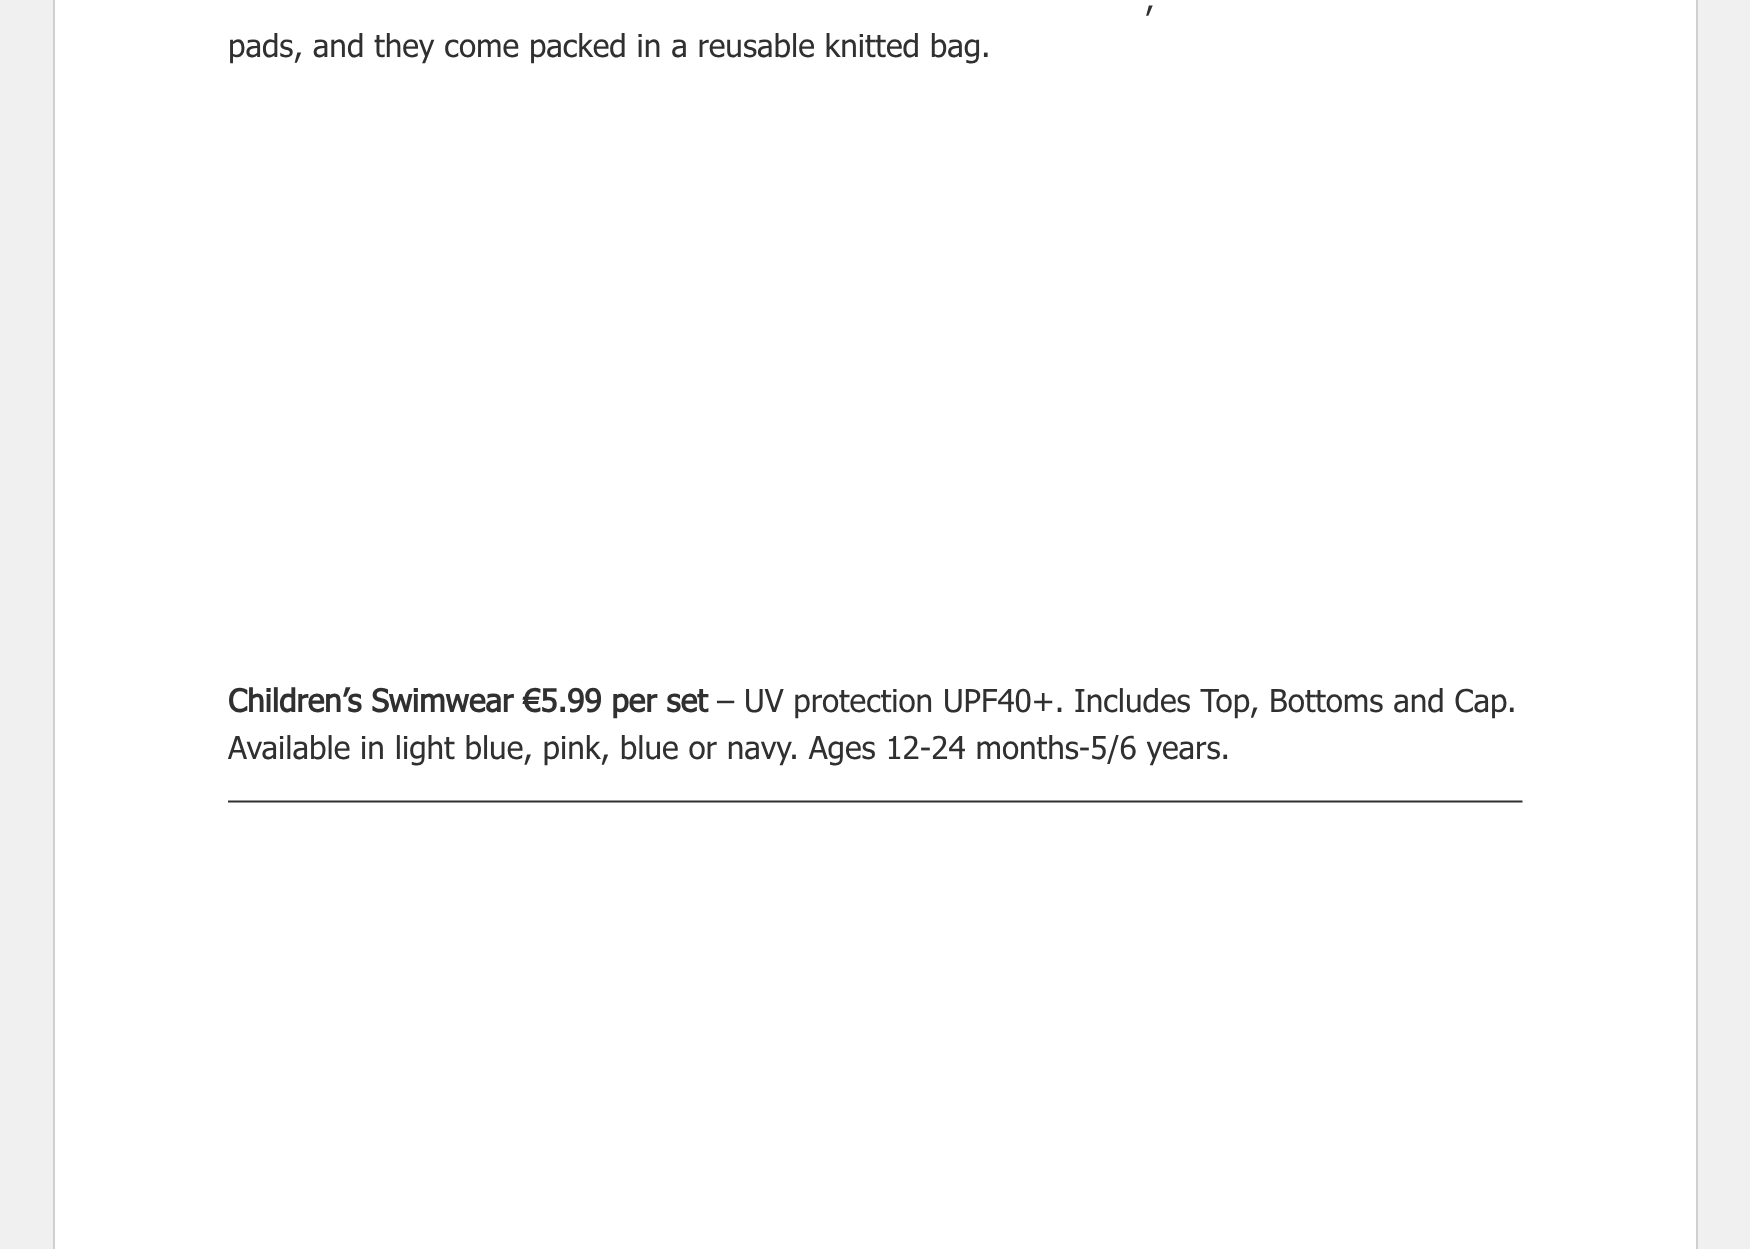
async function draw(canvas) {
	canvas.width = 1750;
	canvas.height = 1249;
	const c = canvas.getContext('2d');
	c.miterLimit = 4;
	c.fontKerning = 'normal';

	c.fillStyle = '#f0f0f0';
	c.fillRect(0, 0, 1750, 1249);
	c.fillStyle = '#fff';
	c.beginPath();
	c.rect(54, -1, 1643, 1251);
	c.fill();
	c.strokeStyle = '#d0d0d0';
	c.lineWidth = 2;
	c.stroke();
	c.font = '31.5px tahoma';
	c.fillStyle = '#303030';
	c.fillText(',', 1145, 10);
	c.fillText('pads, and they come packed in a reusable knitted bag.', 228, 57);
	c.font = 'bold 31.5px tahoma';
	c.fillText('Children’s Swimwear €5.99 per set', 228, 712);
	c.font = '31.5px tahoma';
	c.fillText('– UV protection UPF40+. Includes Top, Bottoms and Cap.', 717, 712);
	c.fillText('Available in light blue, pink, blue or navy. Ages 12-24 months-5/6 years.', 228, 759);
	c.save();
	c.beginPath();
	c.rect(228, 800, 1295, 26);
	c.clip();
	c.beginPath();
	c.moveTo(227.5, 801.5);
	c.lineTo(1522.5, 801.5);
	c.strokeStyle = '#303030';
	c.lineWidth = 1.8;
	c.stroke();
	c.restore();
}

draw(document.querySelector('canvas'));
